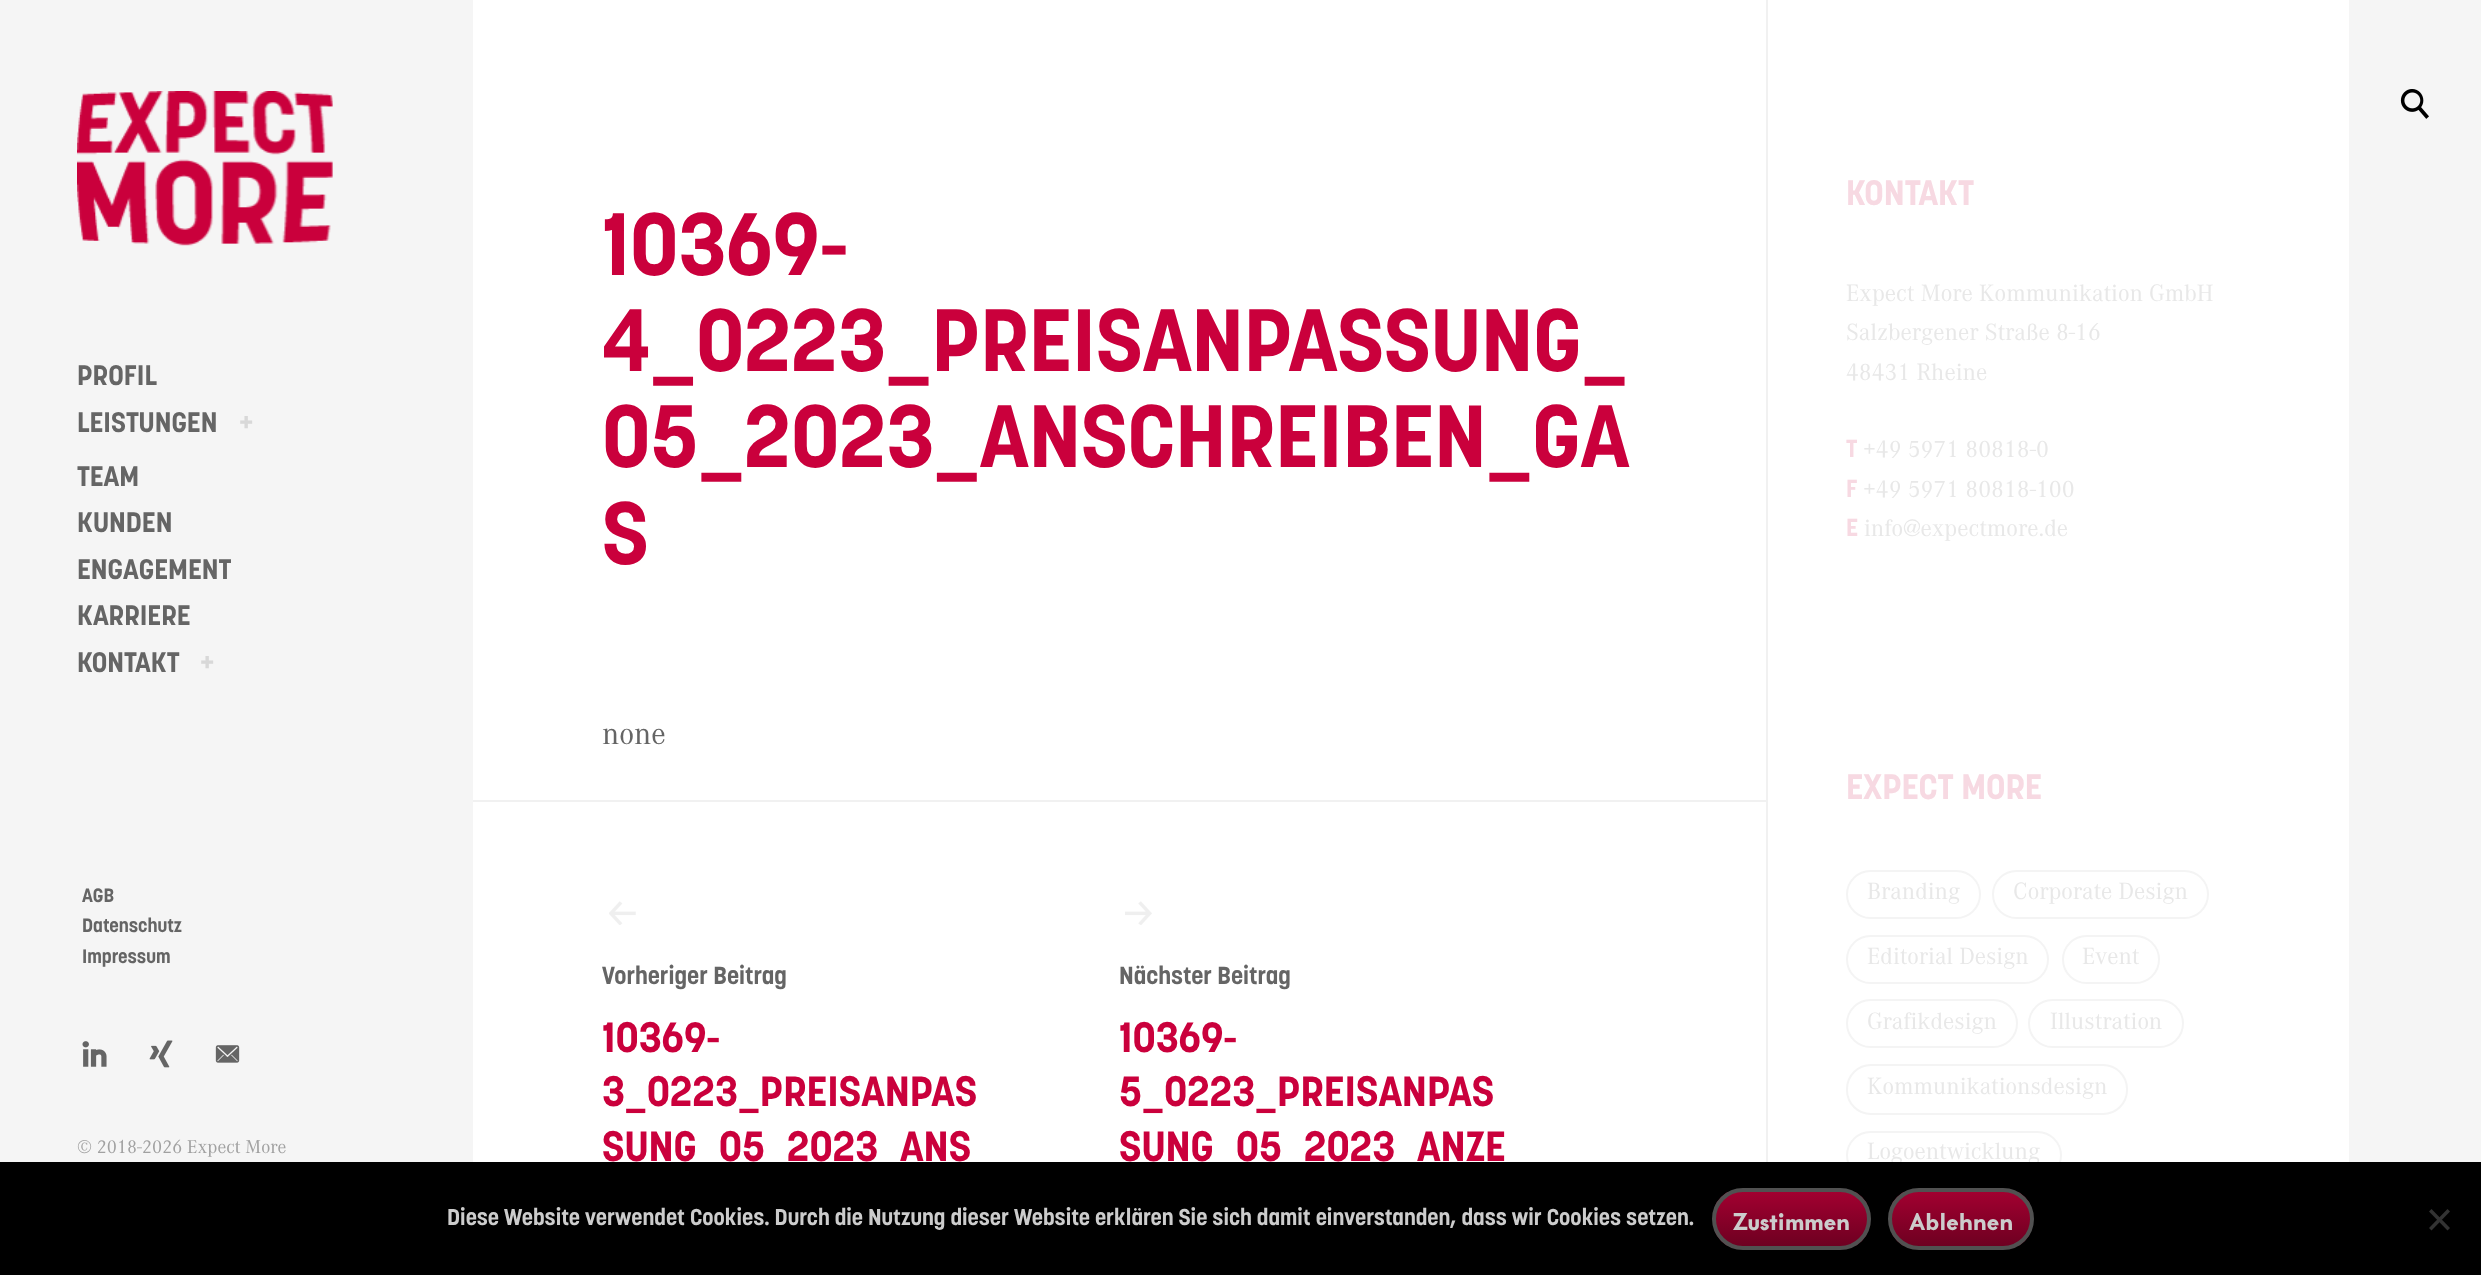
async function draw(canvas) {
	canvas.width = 2481;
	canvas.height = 1275;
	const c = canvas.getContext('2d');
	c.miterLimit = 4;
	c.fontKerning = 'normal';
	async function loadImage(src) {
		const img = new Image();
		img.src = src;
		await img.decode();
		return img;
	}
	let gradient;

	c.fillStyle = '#f5f5f5';
	c.fillRect(0, 0, 2481, 1275);
	c.drawImage(await loadImage('img1.png'), 2400, 89, 29, 30);
	c.drawImage(await loadImage('img2.png'), 77, 91, 256, 155);
	c.font = 'bold 28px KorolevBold';
	c.fillStyle = '#656565';
	c.fillText('PROFIL', 77, 385);
	c.fillText('LEISTUNGEN', 77, 432);
	c.fillStyle = '#d8d8d8';
	c.fillText('+', 239, 432);
	c.fillStyle = '#656565';
	for (const [text, x, y] of [
		['TEAM', 77, 486],
		['KUNDEN', 77, 532],
		['ENGAGEMENT', 77, 579],
		['KARRIERE', 77, 625],
		['KONTAKT', 77, 672],
	]) {
		c.fillText(text, x, y);
	}
	c.fillStyle = '#d8d8d8';
	c.fillText('+', 200, 672);
	c.fillStyle = '#fff';
	c.fillRect(473, 0, 1876, 1162);
	c.fillStyle = '#f1f1f1';
	c.fillRect(1766, 0, 2, 1162);
	c.font = 'bold 87.5px KorolevBold';
	c.fillStyle = '#ca003c';
	for (const [text, x, y] of [
		['10369-', 602, 275],
		['4_0223_PREISANPASSUNG_', 602, 371],
		['05_2023_ANSCHREIBEN_GA', 602, 467],
		['S', 602, 564],
	]) {
		c.fillText(text, x, y);
	}
	c.font = '31.5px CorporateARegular';
	c.fillStyle = '#656565';
	c.fillText('none', 602, 744);
	c.fillStyle = '#f1f1f1';
	c.fillRect(473, 800, 1293, 2);
	c.drawImage(await loadImage('img3.png'), 609, 901, 27, 24);
	c.font = 'bold 24.6px KorolevBold';
	c.fillStyle = '#656565';
	c.fillText('Vorheriger Beitrag', 602, 984);
	c.font = 'bold 42px KorolevBold';
	c.fillStyle = '#ca003c';
	for (const [text, x, y] of [
		['10369-', 602, 1052],
		['3_0223_PREISANPAS', 602, 1106],
		['SUNG_05_2023_ANS', 602, 1161],
	]) {
		c.fillText(text, x, y);
	}
	c.drawImage(await loadImage('img4.png'), 1125, 901, 27, 24);
	c.font = 'bold 24.6px KorolevBold';
	c.fillStyle = '#656565';
	c.fillText('Nächster Beitrag', 1119, 984);
	c.font = 'bold 42px KorolevBold';
	c.fillStyle = '#ca003c';
	for (const [text, x, y] of [
		['10369-', 1119, 1052],
		['5_0223_PREISANPAS', 1119, 1106],
		['SUNG_05_2023_ANZE', 1119, 1161],
	]) {
		c.fillText(text, x, y);
	}
	c.font = 'bold 35px KorolevBold';
	c.fillStyle = '#f7d9e2';
	c.fillText('KONTAKT', 1846, 205);
	c.font = '24.6px CorporateARegular';
	c.fillStyle = '#e8e8e8';
	for (const [text, x, y] of [
		['Expect More Kommunikation GmbH', 1846, 301],
		['Salzbergener Straße 8-16', 1846, 340],
		['48431 Rheine', 1846, 380],
	]) {
		c.fillText(text, x, y);
	}
	c.font = 'bold 24.6px KorolevBold';
	c.fillStyle = '#f7d9e2';
	c.fillText('T', 1846, 457);
	c.font = '24.6px CorporateARegular';
	c.fillStyle = '#e8e8e8';
	c.fillText('+49 5971 80818-0', 1863, 457);
	c.font = 'bold 24.6px KorolevBold';
	c.fillStyle = '#f7d9e2';
	c.fillText('F', 1846, 497);
	c.font = '24.6px CorporateARegular';
	c.fillStyle = '#e8e8e8';
	c.fillText('+49 5971 80818-100', 1863, 497);
	c.font = 'bold 24.6px KorolevBold';
	c.fillStyle = '#f7d9e2';
	c.fillText('E', 1846, 536);
	c.font = '24.6px CorporateARegular';
	c.fillStyle = '#e8e8e8';
	c.fillText('info@expectmore.de', 1864, 536);
	c.font = 'bold 35px KorolevBold';
	c.fillStyle = '#f7d9e2';
	c.fillText('EXPECT MORE', 1846, 799);
	c.beginPath();
	c.roundRect(1847, 871, 133, 47, 23.5);
	c.strokeStyle = '#f4f4f4';
	c.lineWidth = 2;
	c.stroke();
	c.font = '24.5px CorporateARegular';
	c.fillStyle = '#e8e8e8';
	c.fillText('Branding', 1867, 899);
	c.beginPath();
	c.roundRect(1993, 871, 215, 47, 23.5);
	c.stroke();
	c.fillText('Corporate Design', 2013, 899);
	c.beginPath();
	c.roundRect(1847, 936, 201, 47, 23.5);
	c.stroke();
	c.fillText('Editorial Design', 1867, 964);
	c.beginPath();
	c.roundRect(2063, 936, 96, 47, 23.5);
	c.stroke();
	c.fillText('Event', 2082, 964);
	c.beginPath();
	c.roundRect(1847, 1000, 170, 47, 23.5);
	c.stroke();
	c.fillText('Grafikdesign', 1867, 1029);
	c.beginPath();
	c.roundRect(2029, 1000, 154, 47, 23.5);
	c.stroke();
	c.fillText('Illustration', 2050, 1029);
	c.beginPath();
	c.roundRect(1847, 1065, 280, 49, 24);
	c.stroke();
	c.fillText('Kommunikationsdesign', 1867, 1094);
	c.beginPath();
	c.roundRect(1847, 1132, 214, 47, 23.5);
	c.stroke();
	c.fillText('Logoentwicklung', 1867, 1159);
	c.font = 'bold 19.25px KorolevBold';
	c.fillStyle = '#656565';
	for (const [text, x, y] of [
		['AGB', 82, 902],
		['Datenschutz', 82, 932],
		['Impressum', 82, 963],
	]) {
		c.fillText(text, x, y);
	}
	c.drawImage(await loadImage('img5.png'), 82, 1041, 25, 26);
	c.drawImage(await loadImage('img6.png'), 149, 1040, 24, 28);
	c.drawImage(await loadImage('img7.png'), 215, 1045, 25, 18);
	c.font = '19.25px CorporateARegular';
	c.fillStyle = '#a1a1a1';
	c.fillText('© 2018-2026 Expect More', 77, 1153);
	c.fillStyle = '#000';
	c.fillRect(0, 1162, 2481, 113);
	c.font = 'bold 22.75px KorolevBold';
	c.fillStyle = '#ccc';
	c.fillText('Diese Website verwendet Cookies. Durch die Nutzung dieser Website erklären Sie sich damit einverstanden, dass wir Cookies setzen.', 447, 1225);
	c.save();
	c.beginPath();
	c.roundRect(1712, 1188, 159, 62, 31);
	c.clip();
	gradient = c.createLinearGradient(1791, 1192, 1791, 1246);
	gradient.addColorStop(0, '#a20030');
	gradient.addColorStop(1, '#6e0021');
	c.fillStyle = gradient;
	c.fillRect(1715, 1192, 152, 54);
	c.restore();
	c.beginPath();
	c.roundRect(1714, 1190, 155, 58, 29);
	c.strokeStyle = '#515151';
	c.lineWidth = 4;
	c.stroke();
	c.font = '900 22.75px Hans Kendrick';
	c.fillText('Zustimmen', 1733, 1230);
	c.save();
	c.beginPath();
	c.roundRect(1888, 1188, 146, 62, 31);
	c.clip();
	gradient = c.createLinearGradient(1961, 1192, 1961, 1246);
	gradient.addColorStop(0, '#a20030');
	gradient.addColorStop(1, '#6e0021');
	c.fillStyle = gradient;
	c.fillRect(1892, 1192, 138, 54);
	c.restore();
	c.beginPath();
	c.roundRect(1890, 1190, 142, 58, 29);
	c.stroke();
	c.fillText('Ablehnen', 1909, 1230);
	c.fillStyle = '#333';
	c.beginPath();
	c.moveTo(2447.5, 1209);
	c.lineTo(2450, 1211.5);
	c.lineTo(2431.5, 1230.5);
	c.lineTo(2429, 1228);
	c.closePath();
	c.fill();
	c.beginPath();
	c.moveTo(2429, 1211.5);
	c.lineTo(2431.5, 1209);
	c.lineTo(2450, 1228);
	c.lineTo(2447.5, 1230.5);
	c.closePath();
	c.fill();
}

draw(document.querySelector('canvas'));
